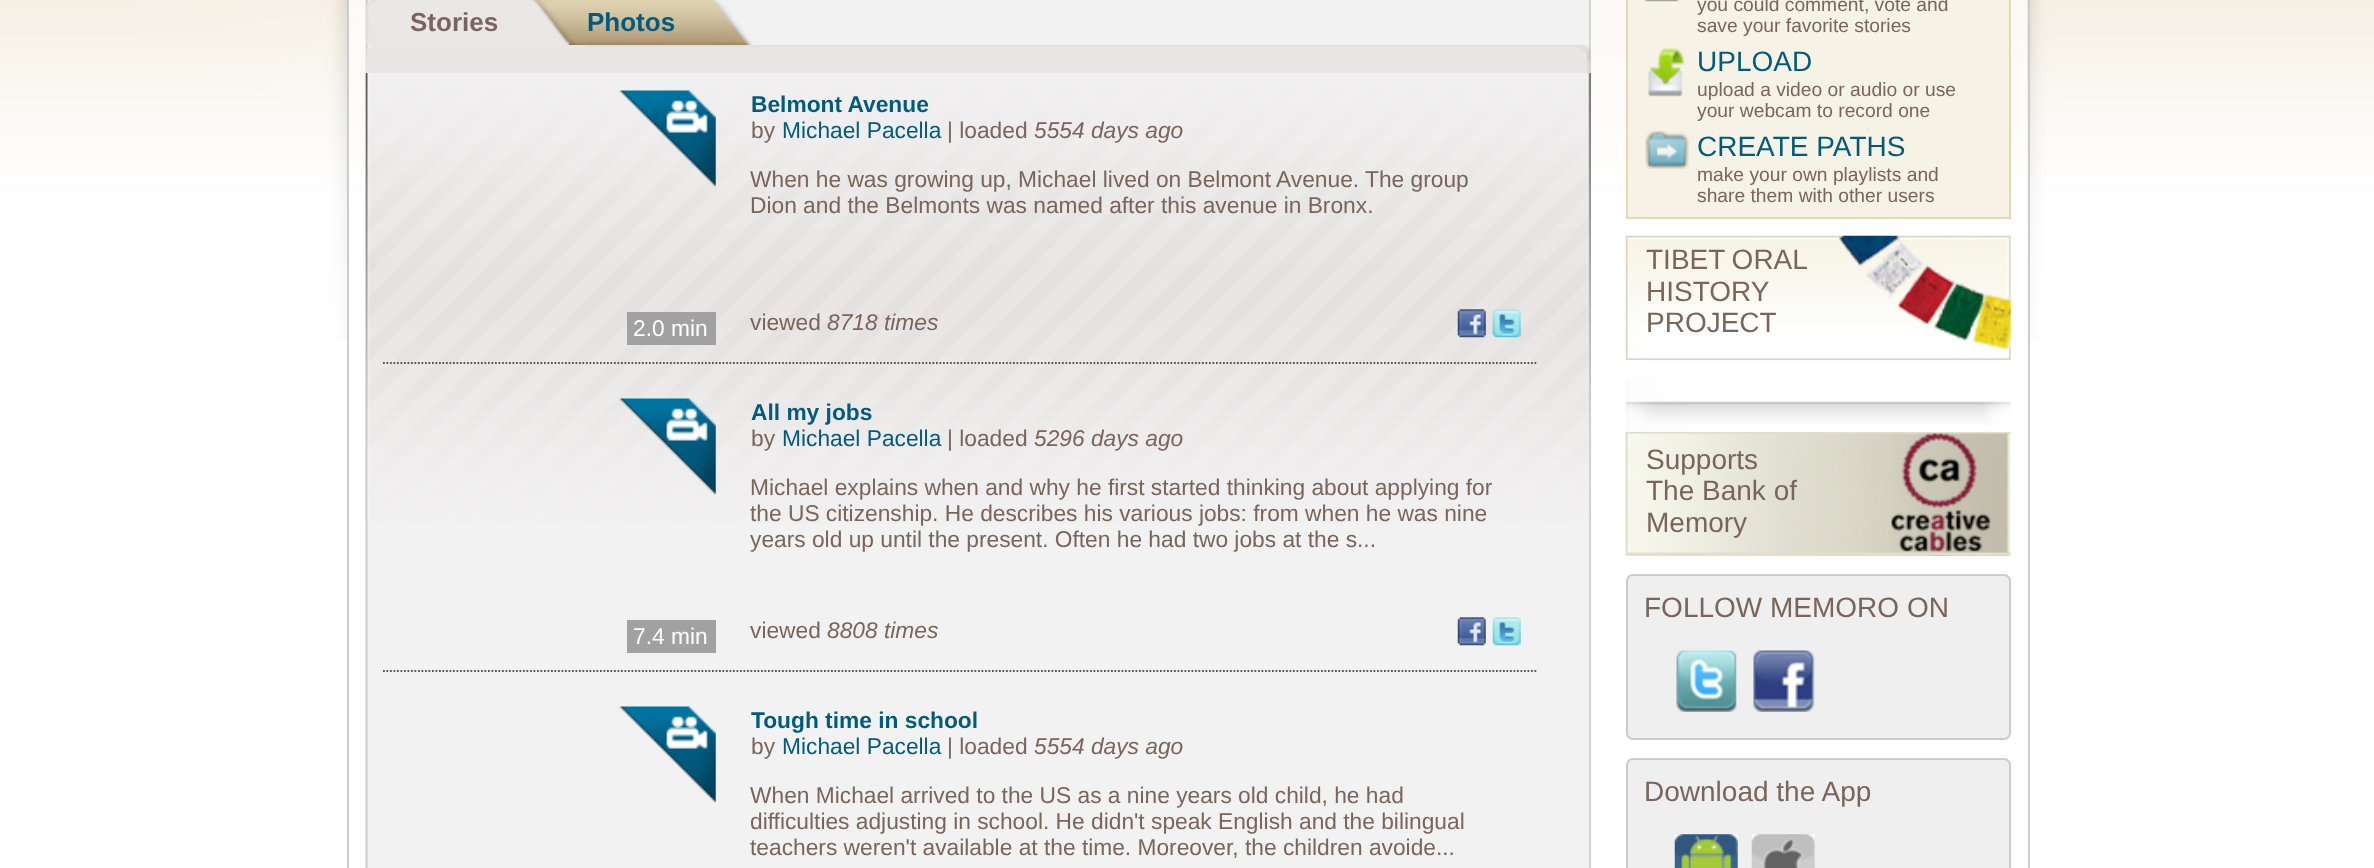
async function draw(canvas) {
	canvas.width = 2374;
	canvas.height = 868;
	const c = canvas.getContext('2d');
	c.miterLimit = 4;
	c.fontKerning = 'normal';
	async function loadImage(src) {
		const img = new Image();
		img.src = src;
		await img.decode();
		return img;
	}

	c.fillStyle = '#fff';
	c.fillRect(0, 0, 2374, 868);
	c.drawImage(await loadImage('img1.png'), 0, 0, 2374, 340);
	c.fillStyle = '#ccc';
	c.fillRect(2028, 0, 2, 868);
	c.fillRect(347, 0, 2, 868);
	c.drawImage(await loadImage('img2.png'), 365, 0, 1226, 868);
	c.drawImage(await loadImage('img3.png'), 365, 0, 13, 45);
	c.drawImage(await loadImage('img5.png'), 532, 0, 221, 45);
	c.drawImage(await loadImage('img4.png'), 378, 0, 198, 45);
	c.font = 'bold 26px Liberation Sans';
	c.fillStyle = '#79655b';
	c.fillText('Stories', 410, 31);
	c.fillStyle = '#005b7f';
	c.fillText('Photos', 587, 31);
	c.drawImage(await loadImage('img6.png'), 365, 45, 1226, 28);
	c.drawImage(await loadImage('img7.png'), 365, 73, 1226, 795);
	c.drawImage(await loadImage('img8.png'), 365, 73, 1226, 451);
	c.beginPath();
	c.moveTo(383, 363);
	c.lineTo(1538, 363);
	c.strokeStyle = '#555';
	c.lineWidth = 1.8;
	c.setLineDash([1.75, 1.75]);
	c.stroke();
	c.drawImage(await loadImage('img9.png'), 619, 90, 97, 97);
	c.fillStyle = '#a1a1a1';
	c.fillRect(627, 312, 89, 33);
	c.font = '22.75px Liberation Sans';
	c.fillStyle = '#fff';
	c.fillText('2.0 min', 633, 336);
	c.font = 'bold 22.75px Liberation Sans';
	c.fillStyle = '#005b7f';
	c.fillText('Belmont Avenue', 751, 112);
	c.font = '22.75px Liberation Sans';
	c.fillStyle = '#79655b';
	c.fillText('by', 751, 138);
	c.fillStyle = '#005b7f';
	c.fillText('Michael Pacella', 782, 138);
	c.fillStyle = '#79655b';
	c.fillText('| loaded', 947, 138);
	c.font = 'italic 22.75px Liberation Sans';
	c.fillText('5554 days ago', 1034, 138);
	c.font = '22.75px Liberation Sans';
	for (const [text, x, y] of [
		['When he was growing up, Michael lived on Belmont Avenue. The group', 750, 187],
		['Dion and the Belmonts was named after this avenue in Bronx.', 750, 213],
		['viewed', 750, 330],
	]) {
		c.fillText(text, x, y);
	}
	c.font = 'italic 22.75px Liberation Sans';
	c.fillText('8718 times', 827, 330);
	c.drawImage(await loadImage('img10.png'), 1457, 309, 29, 29);
	c.drawImage(await loadImage('img11.png'), 1492, 309, 29, 29);
	c.beginPath();
	c.moveTo(383, 671);
	c.lineTo(1538, 671);
	c.stroke();
	c.drawImage(await loadImage('img12.png'), 619, 398, 97, 97);
	c.fillStyle = '#a1a1a1';
	c.fillRect(627, 620, 89, 33);
	c.font = '22.75px Liberation Sans';
	c.fillStyle = '#fff';
	c.fillText('7.4 min', 633, 644);
	c.font = 'bold 22.75px Liberation Sans';
	c.fillStyle = '#005b7f';
	c.fillText('All my jobs', 751, 420);
	c.font = '22.75px Liberation Sans';
	c.fillStyle = '#79655b';
	c.fillText('by', 751, 446);
	c.fillStyle = '#005b7f';
	c.fillText('Michael Pacella', 782, 446);
	c.fillStyle = '#79655b';
	c.fillText('| loaded', 947, 446);
	c.font = 'italic 22.75px Liberation Sans';
	c.fillText('5296 days ago', 1034, 446);
	c.font = '22.75px Liberation Sans';
	for (const [text, x, y] of [
		['Michael explains when and why he first started thinking about applying for', 750, 495],
		['the US citizenship. He describes his various jobs: from when he was nine', 750, 521],
		['years old up until the present. Often he had two jobs at the s...', 750, 547],
		['viewed', 750, 638],
	]) {
		c.fillText(text, x, y);
	}
	c.font = 'italic 22.75px Liberation Sans';
	c.fillText('8808 times', 827, 638);
	c.drawImage(await loadImage('img13.png'), 1457, 617, 29, 29);
	c.drawImage(await loadImage('img14.png'), 1492, 617, 29, 29);
	c.drawImage(await loadImage('img15.png'), 619, 706, 97, 97);
	c.font = 'bold 22.75px Liberation Sans';
	c.fillStyle = '#005b7f';
	c.fillText('Tough time in school', 751, 728);
	c.font = '22.75px Liberation Sans';
	c.fillStyle = '#79655b';
	c.fillText('by', 751, 754);
	c.fillStyle = '#005b7f';
	c.fillText('Michael Pacella', 782, 754);
	c.fillStyle = '#79655b';
	c.fillText('| loaded', 947, 754);
	c.font = 'italic 22.75px Liberation Sans';
	c.fillText('5554 days ago', 1034, 754);
	c.font = '22.75px Liberation Sans';
	for (const [text, x, y] of [
		['When Michael arrived to the US as a nine years old child, he had', 750, 803],
		['difficulties adjusting in school. He didn\'t speak English and the bilingual', 750, 829],
		['teachers weren\'t available at the time. Moreover, the children avoide...', 750, 855],
	]) {
		c.fillText(text, x, y);
	}
	c.fillStyle = '#f6f2e5';
	c.beginPath();
	c.rect(1627, -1, 383, 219);
	c.fill();
	c.strokeStyle = '#e5d8b4';
	c.lineWidth = 2;
	c.setLineDash([]);
	c.stroke();
	c.drawImage(await loadImage('img16.png'), 1645, 0, 34, 2);
	c.font = '19.25px Liberation Sans';
	c.fillStyle = '#79655b';
	c.fillText('you could comment, vote and', 1697, 11);
	c.fillText('save your favorite stories', 1697, 32);
	c.drawImage(await loadImage('img17.png'), 1648, 48, 36, 49);
	c.font = '28px Liberation Sans';
	c.fillStyle = '#005b7f';
	c.fillText('UPLOAD', 1697, 71);
	c.font = '19.25px Liberation Sans';
	c.fillStyle = '#79655b';
	c.fillText('upload a video or audio or use', 1697, 96);
	c.fillText('your webcam to record one', 1697, 117);
	c.drawImage(await loadImage('img18.png'), 1645, 130, 44, 39);
	c.font = '28px Liberation Sans';
	c.fillStyle = '#005b7f';
	c.fillText('CREATE PATHS', 1697, 156);
	c.font = '19.25px Liberation Sans';
	c.fillStyle = '#79655b';
	c.fillText('make your own playlists and', 1697, 181);
	c.fillText('share them with other users', 1697, 202);
	c.drawImage(await loadImage('img19.png'), 1625, 235, 386, 125);
	c.wordSpacing = '-1px';
	c.font = '28px Liberation Sans';
	c.fillText('TIBET ORAL', 1646, 269);
	c.wordSpacing = '0px';
	c.fillText('HISTORY', 1646, 301);
	c.fillText('PROJECT', 1646, 332);
	c.drawImage(await loadImage('img21.png'), 1625, 431, 386, 125);
	c.drawImage(await loadImage('img20.png'), 1625, 378, 386, 54);
	for (const [text, x, y] of [
		['Supports', 1646, 469],
		['The Bank of', 1646, 500],
		['Memory', 1646, 532],
	]) {
		c.fillText(text, x, y);
	}
	c.fillStyle = '#efefef';
	c.beginPath();
	c.roundRect(1627, 575, 383, 164, 6);
	c.fill();
	c.strokeStyle = '#ccc';
	c.stroke();
	c.fillStyle = '#79655b';
	c.fillText('FOLLOW MEMORO ON', 1644, 617);
	c.drawImage(await loadImage('img22.png'), 1676, 650, 61, 62);
	c.drawImage(await loadImage('img23.png'), 1753, 650, 62, 62);
	c.fillStyle = '#efefef';
	c.beginPath();
	c.roundRect(1627, 759, 383, 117, 6);
	c.fill();
	c.stroke();
	c.fillStyle = '#79655b';
	c.fillText('Download the App', 1644, 801);
	c.drawImage(await loadImage('img24.png'), 1674, 834, 64, 34);
	c.drawImage(await loadImage('img25.png'), 1751, 834, 64, 34);
}

draw(document.querySelector('canvas'));
